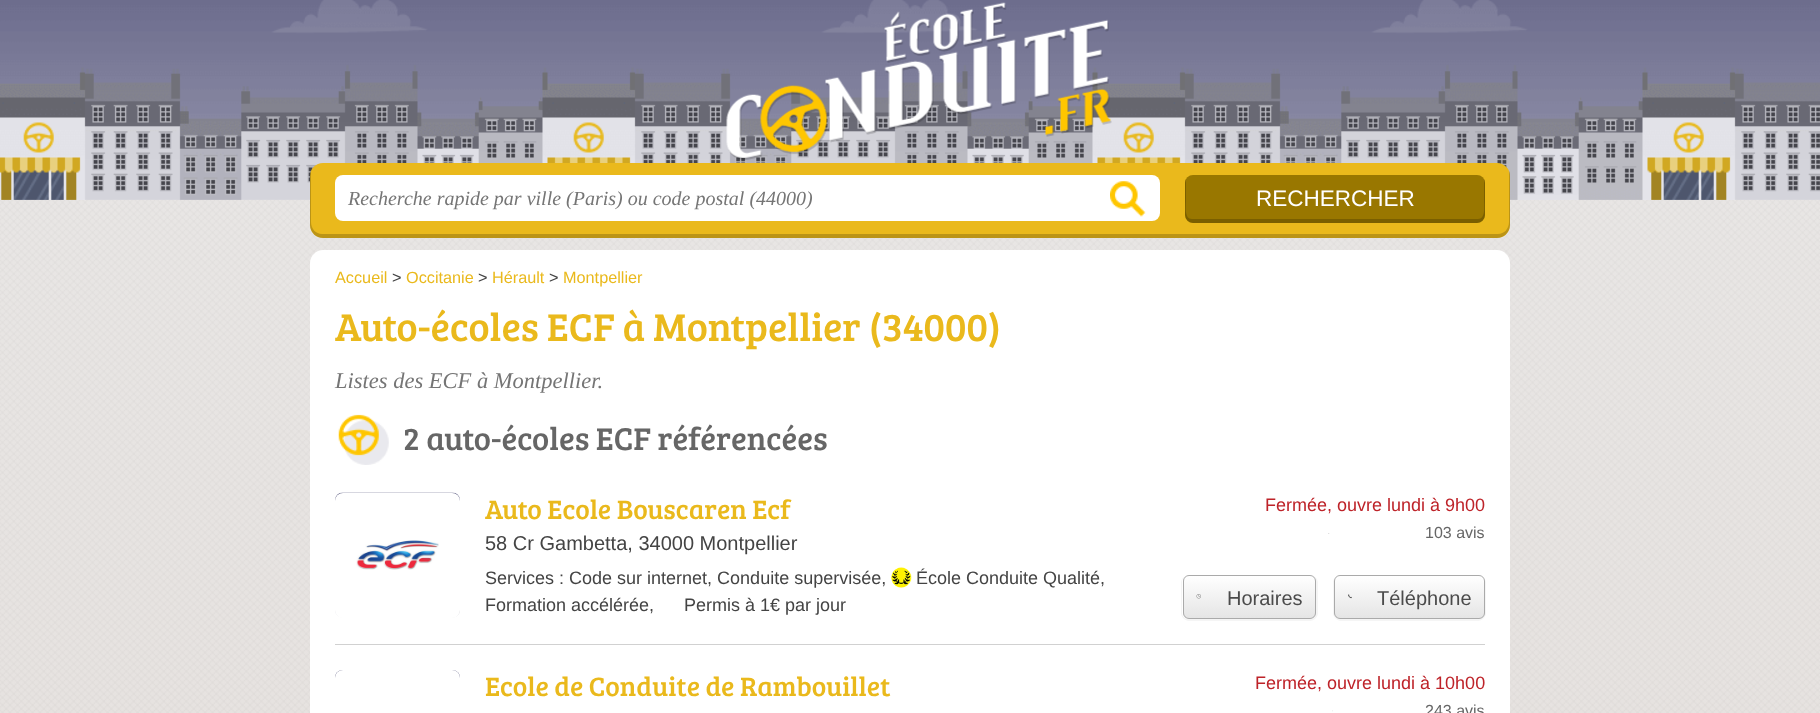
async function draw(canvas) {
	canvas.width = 1820;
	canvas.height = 713;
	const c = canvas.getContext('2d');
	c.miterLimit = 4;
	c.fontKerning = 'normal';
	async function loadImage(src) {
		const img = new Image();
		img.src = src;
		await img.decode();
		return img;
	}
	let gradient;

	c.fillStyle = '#fff';
	c.fillRect(0, 0, 1820, 713);
	c.drawImage(await loadImage('img1.png'), 0, 199, 1820, 514);
	c.drawImage(await loadImage('img2.png'), 0, 0, 1820, 200);
	c.drawImage(await loadImage('img3.png'), 726, 2, 386, 158);
	c.fillStyle = '#eab91c';
	c.beginPath();
	c.roundRect(310, 163, 1200, 75, 13);
	c.fill();
	c.fillStyle = '#00000033';
	c.beginPath();
	c.moveTo(311, 171);
	c.bezierCurveTo(310, 172, 310, 174, 310, 176);
	c.lineTo(310, 225);
	c.bezierCurveTo(310, 232, 316, 238, 323, 238);
	c.lineTo(1497, 238);
	c.bezierCurveTo(1504, 238, 1510, 232, 1510, 225);
	c.lineTo(1510, 176);
	c.bezierCurveTo(1510, 174, 1510, 172, 1509, 171);
	c.lineTo(1509, 222);
	c.bezierCurveTo(1509, 229, 1504, 234, 1498, 234);
	c.lineTo(322, 234);
	c.bezierCurveTo(316, 234, 311, 229, 311, 222);
	c.closePath();
	c.fill();
	c.fillStyle = '#fff';
	c.beginPath();
	c.roundRect(335, 175, 825, 46, 8);
	c.fill();
	c.drawImage(await loadImage('img4.png'), 1110, 181, 36, 36);
	c.font = 'italic 20px Liberation Serif';
	c.fillStyle = '#757575';
	c.fillText('Recherche rapide par ville (Paris) ou code postal (44000)', 348, 205);
	c.fillStyle = '#970';
	c.beginPath();
	c.roundRect(1185, 175, 300, 48, 8);
	c.fill();
	c.fillStyle = '#00000033';
	c.beginPath();
	c.moveTo(1186, 179);
	c.bezierCurveTo(1185, 180, 1185, 182, 1185, 183);
	c.lineTo(1185, 215);
	c.bezierCurveTo(1185, 219, 1189, 223, 1193, 223);
	c.lineTo(1477, 223);
	c.bezierCurveTo(1481, 223, 1485, 219, 1485, 215);
	c.lineTo(1485, 183);
	c.bezierCurveTo(1485, 182, 1485, 180, 1484, 179);
	c.lineTo(1484, 201);
	c.bezierCurveTo(1484, 206, 1486, 219, 1478, 219);
	c.lineTo(1192, 219);
	c.bezierCurveTo(1184, 219, 1186, 206, 1186, 201);
	c.closePath();
	c.fill();
	c.font = '22.5px Liberation Sans';
	c.fillStyle = '#fff';
	c.fillText('RECHERCHER', 1256, 206);
	c.beginPath();
	c.moveTo(323, 250);
	c.lineTo(1497, 250);
	c.bezierCurveTo(1504, 250, 1510, 256, 1510, 263);
	c.lineTo(1510, 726);
	c.lineTo(310, 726);
	c.lineTo(310, 263);
	c.bezierCurveTo(310, 256, 316, 250, 323, 250);
	c.closePath();
	c.fill();
	c.font = '16.25px Liberation Sans';
	c.fillStyle = '#eab91c';
	c.fillText('Accueil', 335, 283);
	c.fillStyle = '#444';
	c.fillText('>', 392, 283);
	c.fillStyle = '#eab91c';
	c.fillText('Occitanie', 406, 283);
	c.fillStyle = '#444';
	c.fillText('>', 478, 283);
	c.fillStyle = '#eab91c';
	c.fillText('Hérault', 492, 283);
	c.fillStyle = '#444';
	c.fillText('>', 549, 283);
	c.fillStyle = '#eab91c';
	c.fillText('Montpellier', 563, 283);
	c.font = '40px Bree Serif';
	c.fillText('Auto-écoles ECF à Montpellier (34000)', 335, 341);
	c.font = 'italic 22.5px Liberation Serif';
	c.fillStyle = '#757575';
	c.fillText('Listes des ECF à Montpellier.', 335, 388);
	c.drawImage(await loadImage('img5.png'), 338, 414, 51, 51);
	c.font = '32.5px Bree Serif';
	c.fillStyle = '#666';
	c.fillText('2 auto-écoles ECF référencées', 403, 450);
	c.fillStyle = '#d1d1d1';
	c.fillRect(335, 644, 1150, 1);
	c.drawImage(await loadImage('img6.png'), 335, 492, 125, 126);
	c.fillStyle = '#fff';
	c.beginPath();
	c.roundRect(335, 493, 125, 125, 8);
	c.fill();
	c.drawImage(await loadImage('img7.png'), 356, 540, 83, 30);
	c.font = '27.5px Bree Serif';
	c.fillStyle = '#eab91c';
	c.fillText('Auto Ecole Bouscaren Ecf', 485, 519);
	c.font = '18px Liberation Sans';
	c.fillStyle = '#be2329';
	c.fillText('Fermée, ouvre lundi à 9h00', 1265, 511);
	c.drawImage(await loadImage('img8.png'), 1328, 533, 2, 1);
	c.font = '16px Liberation Sans';
	c.fillStyle = '#666';
	c.fillText('103 avis', 1425, 538);
	c.font = '20px Liberation Sans';
	c.fillStyle = '#444';
	c.fillText('58 Cr Gambetta, 34000 Montpellier', 485, 550);
	c.font = '18px Liberation Sans';
	c.fillText('Services : Code sur internet, Conduite supervisée,', 485, 584);
	c.drawImage(await loadImage('img9.png'), 891, 567, 21, 21);
	for (const [text, x, y] of [
		['École Conduite Qualité,', 916, 584],
		['Formation accélérée,', 485, 611],
		['Permis à 1€ par jour', 684, 611],
	]) {
		c.fillText(text, x, y);
	}
	c.fillStyle = '#f5f5f5';
	c.beginPath();
	c.moveTo(1312, 575);
	c.bezierCurveTo(1314, 576, 1316, 578, 1316, 581);
	c.lineTo(1316, 613);
	c.bezierCurveTo(1316, 616, 1314, 619, 1310, 619);
	c.lineTo(1188, 619);
	c.bezierCurveTo(1185, 619, 1182, 616, 1182, 613);
	c.lineTo(1182, 581);
	c.bezierCurveTo(1182, 579, 1184, 577, 1185, 576);
	c.bezierCurveTo(1183, 577, 1181, 580, 1181, 583);
	c.lineTo(1181, 613);
	c.bezierCurveTo(1181, 617, 1185, 621, 1189, 621);
	c.lineTo(1310, 621);
	c.bezierCurveTo(1314, 621, 1318, 617, 1318, 613);
	c.lineTo(1318, 583);
	c.bezierCurveTo(1318, 579, 1315, 576, 1312, 575);
	c.closePath();
	c.fill();
	c.save();
	c.beginPath();
	c.roundRect(1183, 575, 133, 44, 6);
	c.clip();
	gradient = c.createLinearGradient(1249, 576, 1249, 618);
	gradient.addColorStop(0, '#fff');
	gradient.addColorStop(1, '#e5e5e5');
	c.fillStyle = gradient;
	c.fillRect(1183, 576, 133, 42);
	c.restore();
	c.beginPath();
	c.roundRect(1183.5, 575.5, 132, 43, 5.5);
	c.strokeStyle = '#aaa';
	c.stroke();
	c.drawImage(await loadImage('img10.png'), 1196, 594, 5, 5);
	c.font = '20px Liberation Sans';
	c.fillStyle = '#4b4b4b';
	c.fillText('Horaires', 1227, 605);
	c.fillStyle = '#f5f5f5';
	c.beginPath();
	c.moveTo(1484, 578);
	c.lineTo(1485, 581);
	c.lineTo(1485, 613);
	c.bezierCurveTo(1485, 616, 1482, 619, 1479, 619);
	c.lineTo(1340, 619);
	c.bezierCurveTo(1336, 619, 1334, 616, 1334, 613);
	c.lineTo(1334, 581);
	c.lineTo(1334, 579);
	c.bezierCurveTo(1333, 580, 1333, 582, 1333, 583);
	c.lineTo(1333, 613);
	c.bezierCurveTo(1333, 617, 1337, 621, 1341, 621);
	c.lineTo(1478, 621);
	c.bezierCurveTo(1482, 621, 1486, 617, 1486, 613);
	c.lineTo(1486, 583);
	c.bezierCurveTo(1486, 581, 1485, 579, 1484, 578);
	c.closePath();
	c.fill();
	c.save();
	c.beginPath();
	c.roundRect(1334, 575, 151, 44, 6);
	c.clip();
	gradient = c.createLinearGradient(1409, 576, 1409, 618);
	gradient.addColorStop(0, '#fff');
	gradient.addColorStop(1, '#e5e5e5');
	c.fillStyle = gradient;
	c.fillRect(1334, 576, 151, 42);
	c.restore();
	c.beginPath();
	c.roundRect(1334.5, 575.5, 150, 43, 5.5);
	c.stroke();
	c.drawImage(await loadImage('img11.png'), 1348, 594, 4, 5);
	c.fillStyle = '#4b4b4b';
	c.fillText('Téléphone', 1377, 605);
	c.drawImage(await loadImage('img12.png'), 335, 670, 125, 8);
	c.fillStyle = '#fff';
	c.beginPath();
	c.roundRect(335, 670, 125, 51, 8);
	c.fill();
	c.font = '27.5px Bree Serif';
	c.fillStyle = '#eab91c';
	c.fillText('Ecole de Conduite de Rambouillet', 485, 696);
	c.font = '18px Liberation Sans';
	c.fillStyle = '#be2329';
	c.fillText('Fermée, ouvre lundi à 10h00', 1255, 689);
	c.drawImage(await loadImage('img13.png'), 1332, 710, 1, 2);
	c.font = '16px Liberation Sans';
	c.fillStyle = '#666';
	c.fillText('243 avis', 1425, 716);
}

draw(document.querySelector('canvas'));
